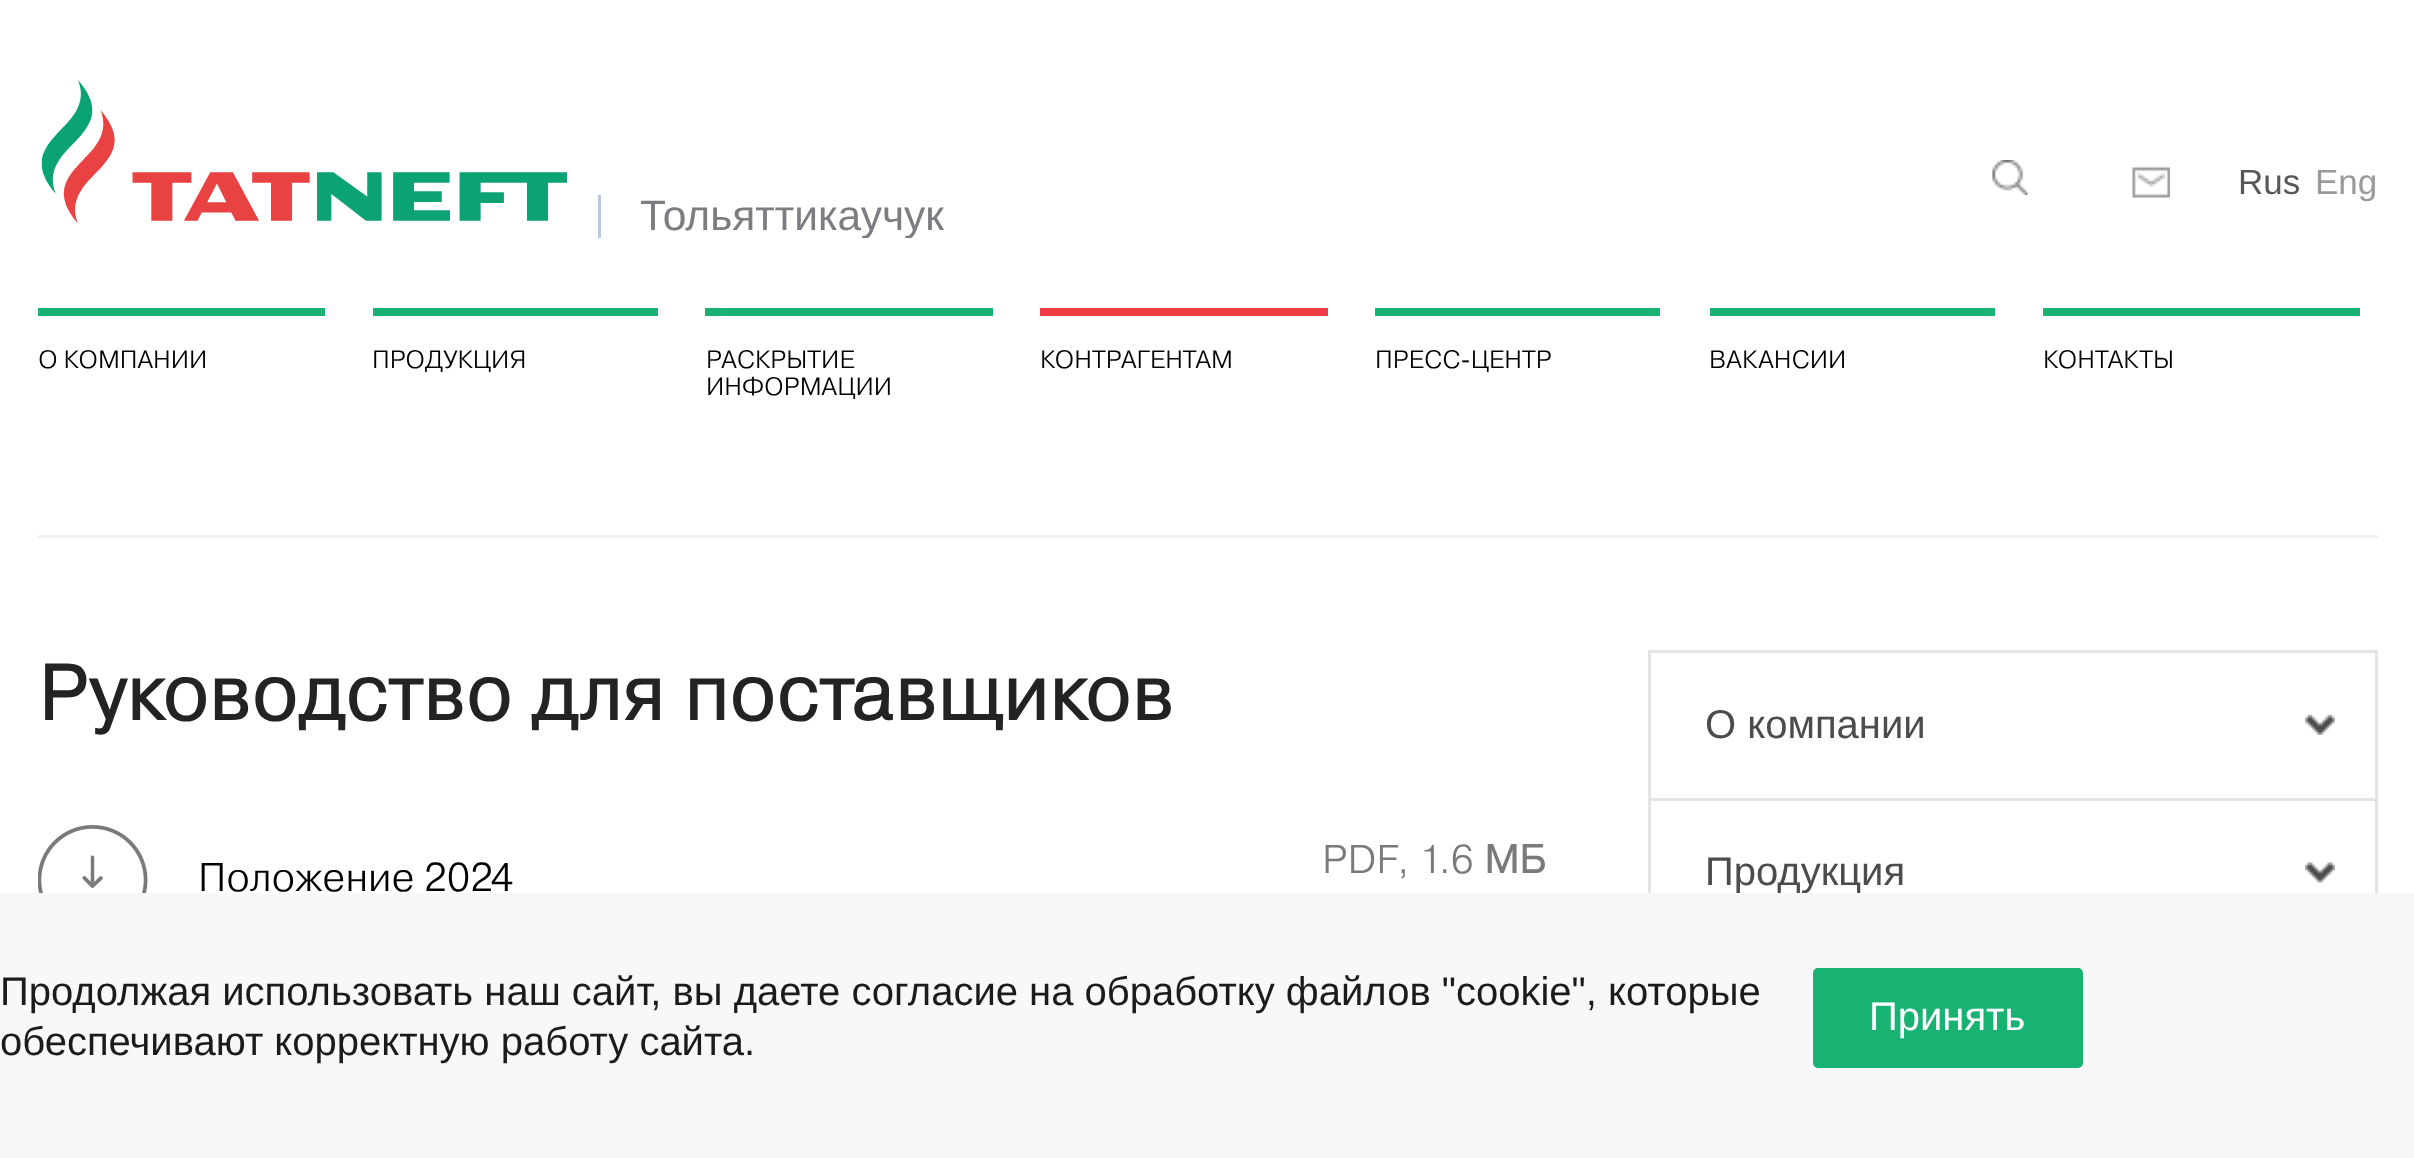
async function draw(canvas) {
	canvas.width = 2414;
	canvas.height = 1158;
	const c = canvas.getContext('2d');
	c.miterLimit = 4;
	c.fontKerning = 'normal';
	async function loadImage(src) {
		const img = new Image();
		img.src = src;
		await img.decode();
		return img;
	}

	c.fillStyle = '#fff';
	c.fillRect(0, 0, 2414, 1158);
	c.drawImage(await loadImage('img1.png'), 1992, 160, 36, 35);
	c.drawImage(await loadImage('img2.png'), 2132, 167, 38, 31);
	c.font = '35px Liberation Sans';
	c.fillStyle = '#575757';
	c.fillText('Rus', 2238, 194);
	c.fillStyle = '#9a9a9a';
	c.fillText('Eng', 2315, 194);
	c.drawImage(await loadImage('img3.png'), 41, 80, 526, 144);
	c.fillStyle = '#bac9df';
	c.fillRect(598, 195, 3, 43);
	c.save();
	c.beginPath();
	c.rect(38, 80, 2340, 158);
	c.clip();
	c.font = '42.5px Liberation Sans';
	c.fillStyle = '#7b7d80';
	c.fillText('Тольяттикаучук', 640, 230);
	c.restore();
	c.fillStyle = '#f2f2f2';
	c.fillRect(38, 535, 2340, 3);
	c.fillStyle = '#1ab374';
	c.fillRect(38, 308, 287, 8);
	c.font = '25px roboto';
	c.fillStyle = '#000';
	c.fillText('О КОМПАНИИ', 38, 368);
	c.fillStyle = '#1ab374';
	c.fillRect(373, 308, 285, 8);
	c.fillStyle = '#000';
	c.fillText('ПРОДУКЦИЯ', 372, 368);
	c.fillStyle = '#1ab374';
	c.fillRect(705, 308, 288, 8);
	c.fillStyle = '#000';
	c.fillText('РАСКРЫТИЕ', 706, 368);
	c.fillText('ИНФОРМАЦИИ', 706, 395);
	c.fillStyle = '#ee3a43';
	c.fillRect(1040, 308, 288, 8);
	c.fillStyle = '#000';
	c.fillText('КОНТРАГЕНТАМ', 1040, 368);
	c.fillStyle = '#1ab374';
	c.fillRect(1375, 308, 285, 8);
	c.fillStyle = '#000';
	c.fillText('ПРЕСС-ЦЕНТР', 1375, 368);
	c.fillStyle = '#1ab374';
	c.fillRect(1710, 308, 285, 8);
	c.fillStyle = '#000';
	c.fillText('ВАКАНСИИ', 1709, 368);
	c.fillStyle = '#1ab374';
	c.fillRect(2043, 308, 317, 8);
	c.fillStyle = '#000';
	c.fillText('КОНТАКТЫ', 2043, 368);
	c.letterSpacing = '1px';
	c.font = 'bold 77.5px roboto';
	c.fillStyle = '#232323';
	c.fillText('Руководство для поставщиков', 38, 720);
	c.drawImage(await loadImage('img4.png'), 38, 825, 110, 68);
	c.letterSpacing = '0px';
	c.font = '40px roboto';
	c.fillStyle = '#000';
	c.fillText('Положение 2024', 198, 891);
	c.fillStyle = '#7a7a7a';
	c.fillText('PDF, 1.6', 1322, 873);
	c.font = 'bold 40px roboto';
	c.fillText('МБ', 1484, 873);
	for (const [x, y, w, h, color] of [
		[1648, 650, 730, 3, '#e4e4e4'],
		[2375, 650, 3, 148, '#e4e4e4'],
		[1648, 650, 3, 148, '#e4e4e4'],
	]) {
		c.fillStyle = color;
		c.fillRect(x, y, w, h);
	}
	c.font = '40px Liberation Sans';
	c.fillStyle = '#4c4c4c';
	c.fillText('О компании', 1705, 738);
	c.drawImage(await loadImage('img5.png'), 2305, 715, 30, 20);
	for (const [x, y, w, h, color] of [
		[1648, 798, 730, 3, '#e4e4e4'],
		[2375, 798, 3, 95, '#e4e4e4'],
		[1648, 798, 3, 95, '#e4e4e4'],
	]) {
		c.fillStyle = color;
		c.fillRect(x, y, w, h);
	}
	c.fillStyle = '#4c4c4c';
	c.fillText('Продукция', 1705, 885);
	c.drawImage(await loadImage('img6.png'), 2305, 862, 30, 21);
	c.fillStyle = '#f7f8f7';
	c.fillRect(0, 893, 2414, 265);
	c.fillStyle = '#1b1b1b';
	c.fillText('Продолжая использовать наш сайт, вы даете согласие на обработку файлов "cookie", которые', 0, 1005);
	c.fillText('обеспечивают корректную работу сайта.', 0, 1055);
	c.fillStyle = '#18b273';
	c.beginPath();
	c.roundRect(1814.5, 969.5, 267, 97, 3.5);
	c.fill();
	c.strokeStyle = '#18b273';
	c.lineWidth = 3;
	c.stroke();
	c.fillStyle = '#fff';
	c.fillText('Принять', 1869, 1030);
}

draw(document.querySelector('canvas'));
